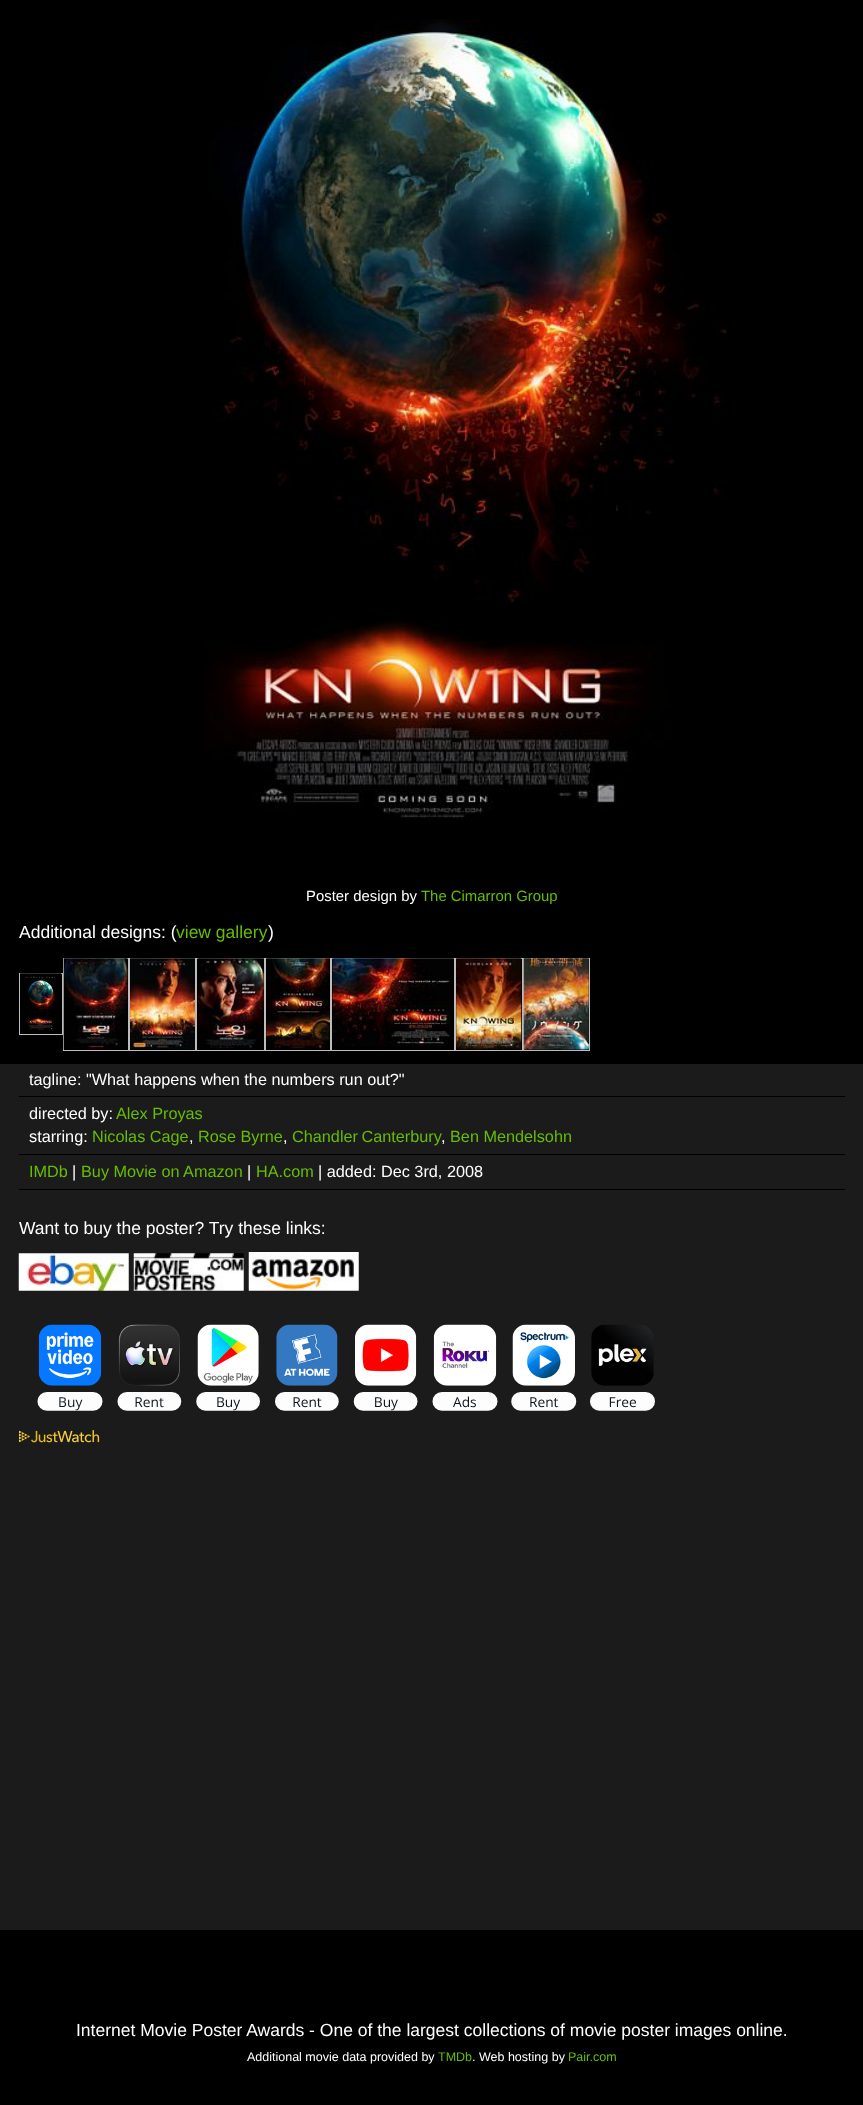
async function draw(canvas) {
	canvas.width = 863;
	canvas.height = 2105;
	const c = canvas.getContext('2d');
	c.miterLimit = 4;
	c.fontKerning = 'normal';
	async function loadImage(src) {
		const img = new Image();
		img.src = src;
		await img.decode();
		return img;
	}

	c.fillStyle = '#000';
	c.fillRect(0, 0, 863, 2105);
	c.drawImage(await loadImage('img1.png'), 204, 19, 524, 802);
	c.font = '14.9px Liberation Sans';
	c.fillStyle = '#fff';
	c.fillText('Poster design by', 306, 901);
	c.fillStyle = '#66bd04';
	c.fillText('The Cimarron Group', 421, 901);
	c.font = '17.5px Liberation Sans';
	c.fillStyle = '#fff';
	c.fillText('Additional designs: (', 19, 938);
	c.fillStyle = '#66bd04';
	c.fillText('view gallery', 176, 938);
	c.fillStyle = '#fff';
	c.fillText(')', 268, 938);
	c.strokeStyle = '#bcbcbc';
	c.strokeRect(63.5, 958.5, 65, 92);
	c.drawImage(await loadImage('img2.png'), 63, 958, 65, 92);
	c.strokeRect(129.5, 958.5, 66, 92);
	c.drawImage(await loadImage('img3.png'), 130, 958, 65, 92);
	c.strokeRect(196.5, 958.5, 68, 92);
	c.drawImage(await loadImage('img4.png'), 197, 958, 67, 91);
	c.strokeRect(265.5, 958.5, 65, 92);
	c.drawImage(await loadImage('img5.png'), 266, 958, 64, 92);
	c.strokeRect(331.5, 958.5, 123, 92);
	c.drawImage(await loadImage('img6.png'), 332, 958, 122, 89);
	c.strokeRect(455.5, 958.5, 67, 92);
	c.drawImage(await loadImage('img7.png'), 456, 958, 66, 92);
	c.strokeRect(523.5, 958.5, 66, 92);
	c.strokeRect(19.5, 973.5, 43, 61);
	c.drawImage(await loadImage('img8.png'), 523, 958, 66, 92);
	c.drawImage(await loadImage('img9.png'), 20, 973, 42, 58);
	c.fillStyle = '#1b1b1b';
	c.fillRect(0, 1064, 863, 866);
	c.fillStyle = '#000';
	c.fillRect(19, 1096, 826, 1);
	c.font = '16.25px Liberation Sans';
	c.fillStyle = '#fff';
	c.fillText('tagline: "What happens when the numbers run out?"', 29, 1085);
	c.fillStyle = '#000';
	c.fillRect(19, 1154, 826, 1);
	c.fillStyle = '#fff';
	c.fillText('directed by:', 29, 1119);
	c.fillStyle = '#66bd04';
	c.fillText('Alex Proyas', 116, 1119);
	c.fillStyle = '#fff';
	c.fillText('starring:', 29, 1142);
	c.fillStyle = '#66bd04';
	c.fillText('Nicolas Cage', 92, 1142);
	c.fillStyle = '#fff';
	c.fillText(',', 189, 1142);
	c.fillStyle = '#66bd04';
	c.fillText('Rose Byrne', 198, 1142);
	c.fillStyle = '#fff';
	c.fillText(',', 283, 1142);
	c.wordSpacing = '-1px';
	c.fillStyle = '#66bd04';
	c.fillText('Chandler Canterbury', 292, 1142);
	c.wordSpacing = '0px';
	c.fillStyle = '#fff';
	c.fillText(',', 441, 1142);
	c.fillStyle = '#66bd04';
	c.fillText('Ben Mendelsohn', 450, 1142);
	c.fillStyle = '#000';
	c.fillRect(19, 1189, 826, 1);
	c.fillStyle = '#66bd04';
	c.fillText('IMDb', 29, 1177);
	c.fillStyle = '#fff';
	c.fillText('|', 72, 1177);
	c.fillStyle = '#66bd04';
	c.fillText('Buy Movie on Amazon', 81, 1177);
	c.fillStyle = '#fff';
	c.fillText('|', 247, 1177);
	c.fillStyle = '#66bd04';
	c.fillText('HA.com', 256, 1177);
	c.fillStyle = '#fff';
	c.fillText('| added: Dec 3rd, 2008', 318, 1177);
	c.font = '17.5px Liberation Sans';
	c.fillText('Want to buy the poster? Try these links:', 19, 1234);
	c.drawImage(await loadImage('img10.png'), 18, 1253, 111, 38);
	c.drawImage(await loadImage('img11.png'), 133, 1253, 111, 38);
	c.drawImage(await loadImage('img12.png'), 248, 1252, 111, 39);
	c.drawImage(await loadImage('img13.png'), 37, 1324, 618, 87);
	c.drawImage(await loadImage('img14.png'), 19, 1430, 81, 13);
	c.fillText('Internet Movie Poster Awards - One of the largest collections of movie poster images online.', 76, 2036);
	c.font = '12.5px Liberation Sans';
	c.fillText('Additional movie data provided by', 247, 2061);
	c.fillStyle = '#66bd04';
	c.fillText('TMDb', 438, 2061);
	c.fillStyle = '#fff';
	c.fillText('. Web hosting by', 472, 2061);
	c.fillStyle = '#66bd04';
	c.fillText('Pair.com', 568, 2061);
}

draw(document.querySelector('canvas'));
